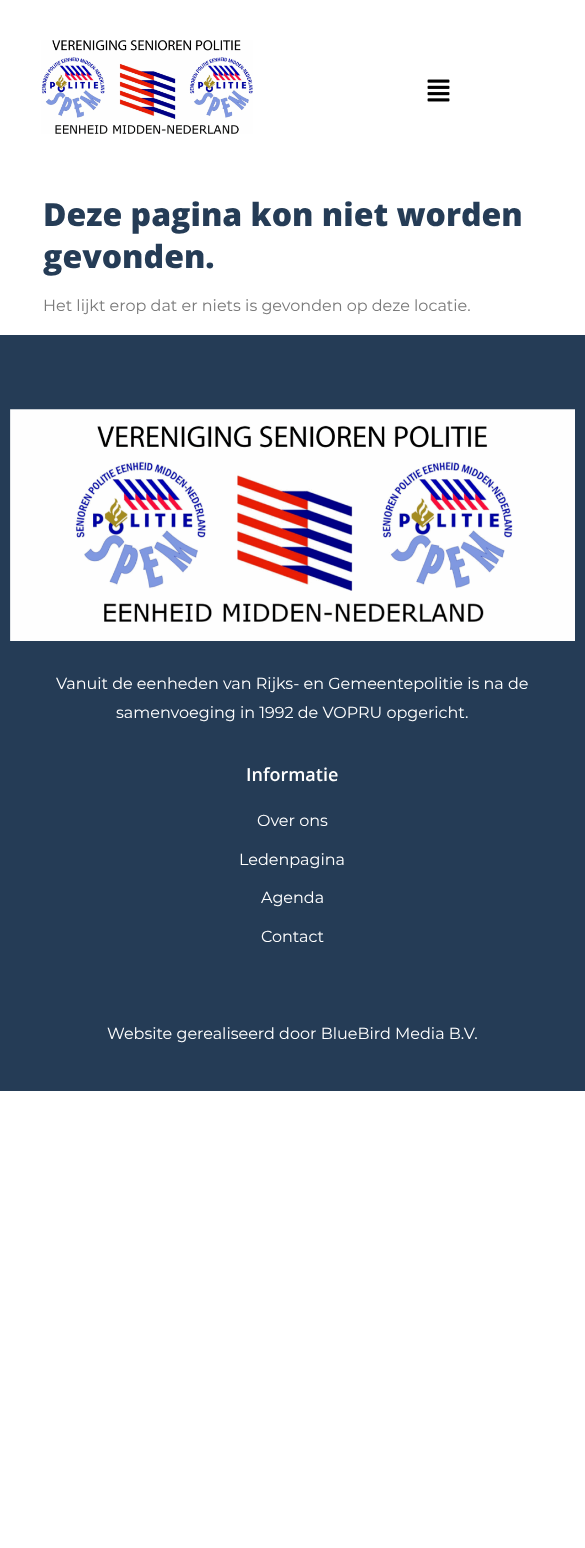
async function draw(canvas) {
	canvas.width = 585;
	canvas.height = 1548;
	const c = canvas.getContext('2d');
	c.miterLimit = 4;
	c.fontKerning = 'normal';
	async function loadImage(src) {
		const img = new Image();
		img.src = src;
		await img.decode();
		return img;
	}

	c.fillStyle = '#fff';
	c.fillRect(0, 0, 585, 1548);
	c.drawImage(await loadImage('img1.png'), 41, 40, 212, 94);
	c.drawImage(await loadImage('img2.png'), 427, 79, 23, 23);
	c.font = '800 32px Open Sans';
	c.fillStyle = '#253c56';
	c.fillText('Deze pagina kon niet worden', 43, 226);
	c.fillText('gevonden.', 43, 268);
	c.font = '16px Montserrat';
	c.fillStyle = '#7a7a7a';
	c.fillText('Het lijkt erop dat er niets is gevonden op deze locatie.', 43, 311);
	c.fillStyle = '#253c56';
	c.fillRect(0, 335, 585, 756);
	c.drawImage(await loadImage('img3.png'), 10, 409, 565, 232);
	c.fillStyle = '#fff';
	c.fillText('Vanuit de eenheden van Rijks- en Gemeentepolitie is na de', 56, 689);
	c.fillText('samenvoeging in 1992 de VOPRU opgericht.', 116, 718);
	c.font = '600 18px Open Sans';
	c.fillText('Informatie', 246, 781);
	c.font = '16px Montserrat';
	for (const [text, x, y] of [
		['Over ons', 257, 826],
		['Ledenpagina', 239, 865],
		['Agenda', 261, 903],
		['Contact', 261, 942],
		['Website gerealiseerd door BlueBird Media B.V.', 107, 1039],
	]) {
		c.fillText(text, x, y);
	}
}

draw(document.querySelector('canvas'));
